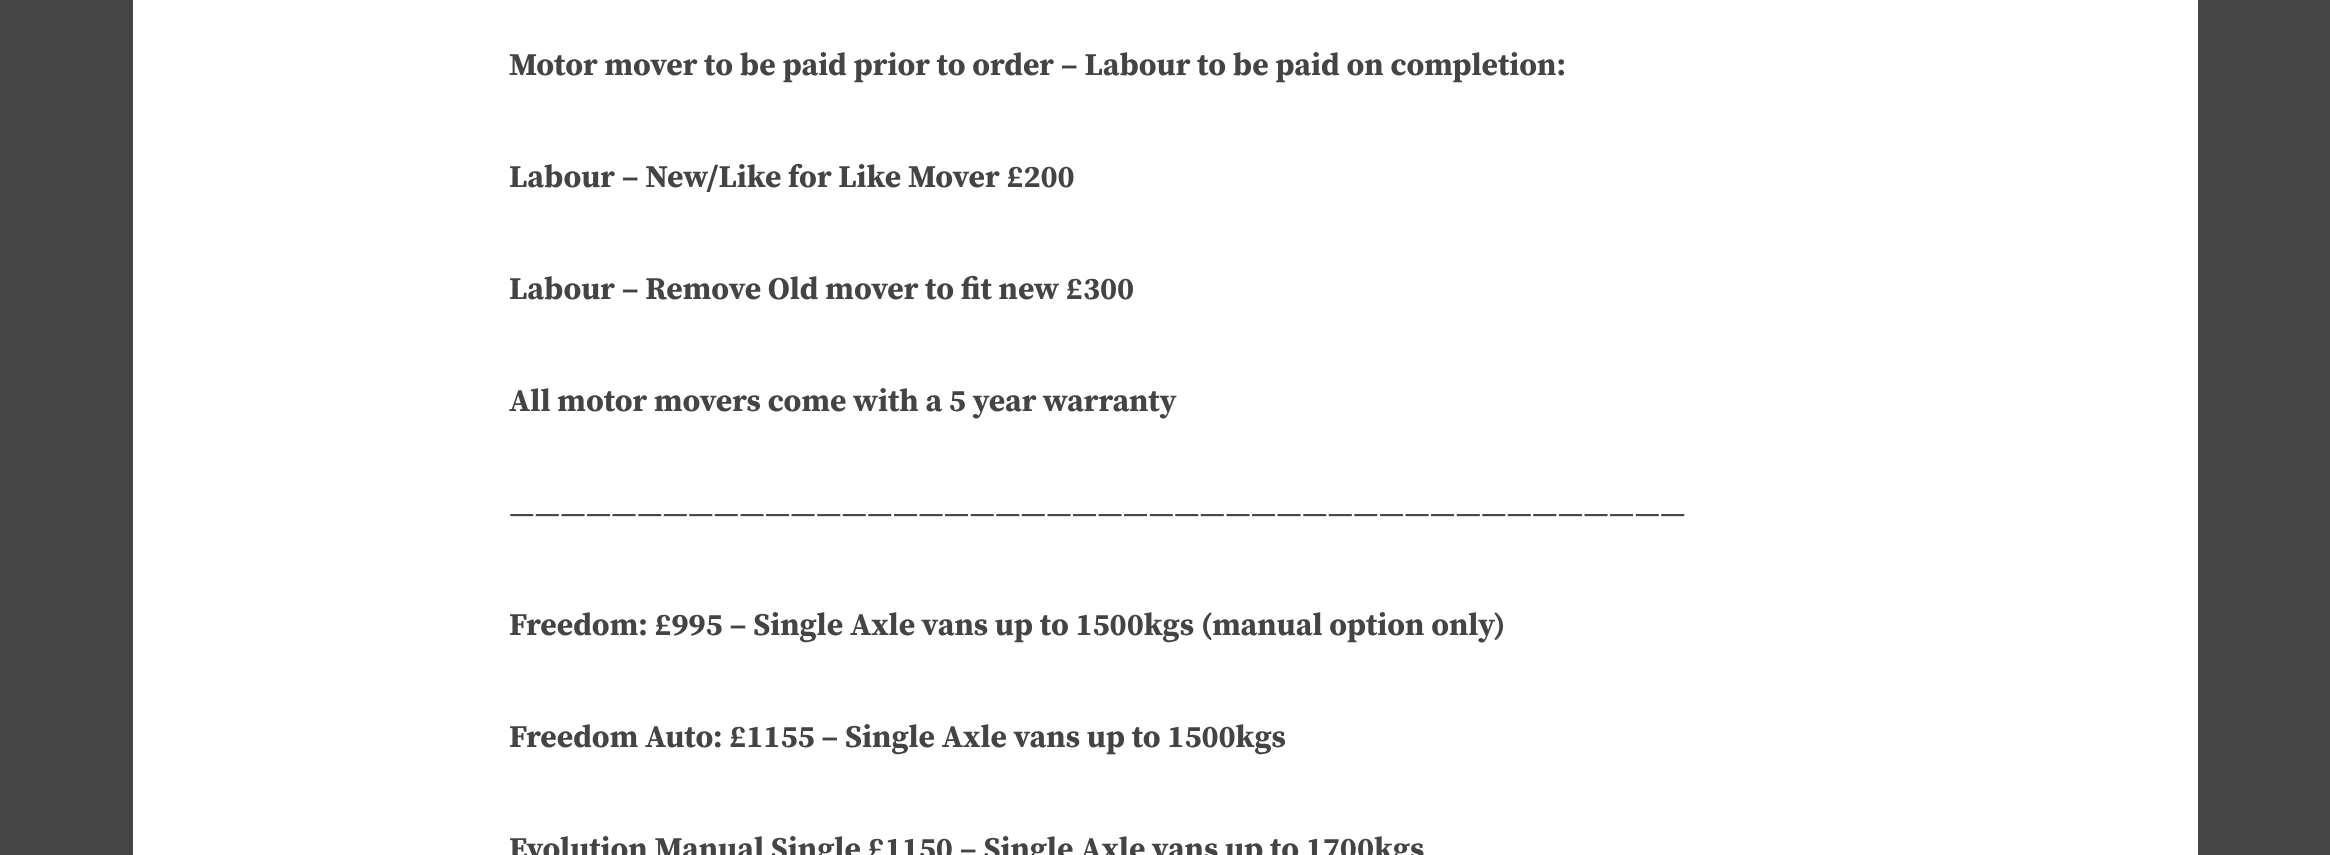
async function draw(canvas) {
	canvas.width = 2330;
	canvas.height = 855;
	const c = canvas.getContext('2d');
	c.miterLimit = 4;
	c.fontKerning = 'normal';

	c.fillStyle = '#444';
	c.fillRect(0, 0, 2330, 855);
	c.fillStyle = '#fff';
	c.fillRect(133, 0, 2065, 855);
	c.font = 'bold 31.5px Source Serif Pro';
	c.fillStyle = '#444';
	for (const [text, x, y] of [
		['Motor mover to be paid prior to order – Labour to be paid on completion:', 509, 75],
		['Labour – New/Like for Like Mover £200', 509, 187],
		['Labour – Remove Old mover to fit new £300', 509, 299],
		['All motor movers come with a 5 year warranty', 509, 411],
	]) {
		c.fillText(text, x, y);
	}
	c.font = '31.5px Source Serif Pro';
	c.fillText('——————————————————————————————————————————————', 509, 523);
	c.font = 'bold 31.5px Source Serif Pro';
	for (const [text, x, y] of [
		['Freedom: £995 – Single Axle vans up to 1500kgs (manual option only)', 509, 635],
		['Freedom Auto: £1155 – Single Axle vans up to 1500kgs', 509, 747],
		['Evolution Manual Single £1150 – Single Axle vans up to 1700kgs', 509, 859],
	]) {
		c.fillText(text, x, y);
	}
}

draw(document.querySelector('canvas'));
